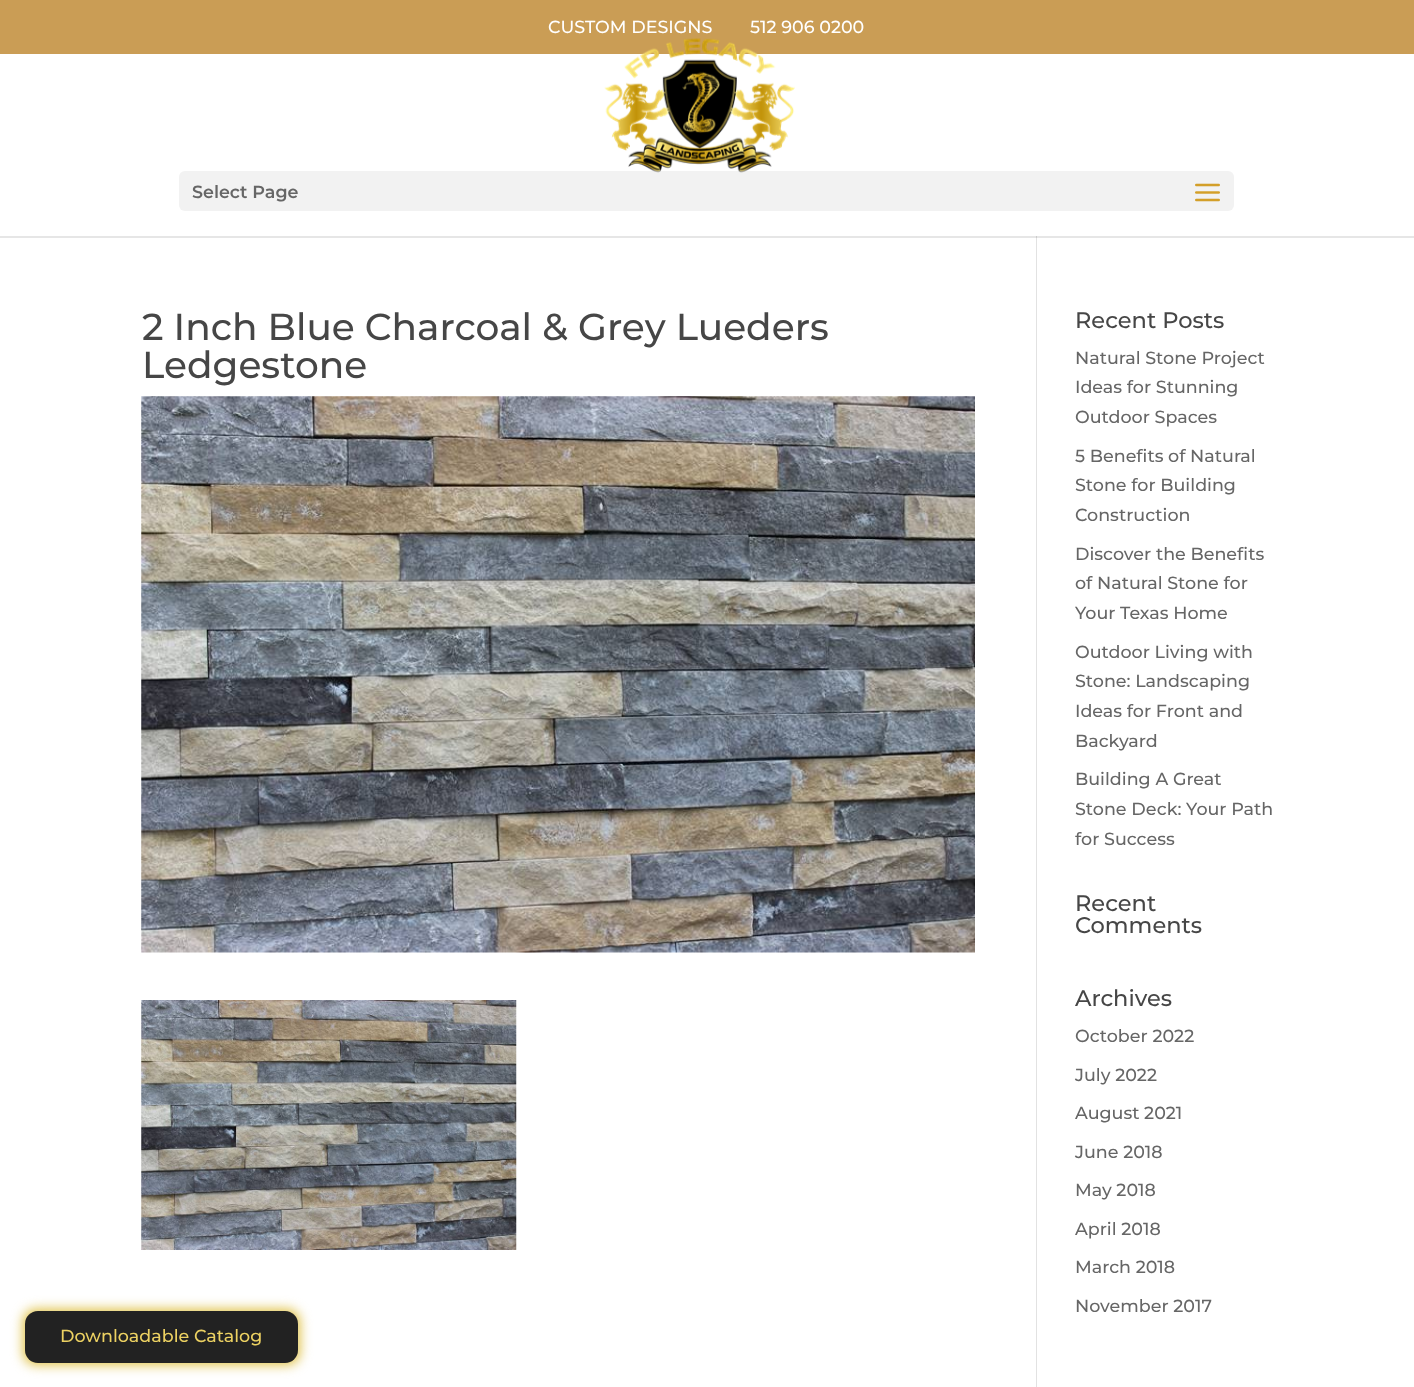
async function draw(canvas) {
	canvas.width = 1414;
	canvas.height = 1387;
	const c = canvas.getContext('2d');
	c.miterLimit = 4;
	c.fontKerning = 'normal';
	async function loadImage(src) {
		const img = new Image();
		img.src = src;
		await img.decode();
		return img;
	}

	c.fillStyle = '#fff';
	c.fillRect(0, 0, 1414, 1387);
	c.fillStyle = '#e6e6e6';
	c.fillRect(0, 236, 1414, 2);
	c.fillStyle = '#ca9d55';
	c.fillRect(0, 0, 1414, 54);
	c.font = '500 17.5px Montserrat';
	c.fillStyle = '#fff';
	c.fillText('CUSTOM DESIGNS', 548, 33);
	c.fillText('512 906 0200', 750, 33);
	c.fillStyle = '#f2f2f2';
	c.beginPath();
	c.roundRect(179, 171, 1055, 40, 6);
	c.fill();
	c.drawImage(await loadImage('img1.png'), 604, 38, 191, 135);
	c.font = '600 17.5px Montserrat';
	c.fillStyle = '#666';
	c.fillText('Select Page', 192, 198);
	c.drawImage(await loadImage('img2.png'), 1195, 183, 25, 19);
	c.fillStyle = '#e2e2e2';
	c.fillRect(1036, 236, 1, 1151);
	c.fillStyle = '#cbcbcb';
	c.fillRect(1036, 236, 1, 2);
	c.font = '500 37.5px Montserrat';
	c.fillStyle = '#464646';
	c.fillText('2 Inch Blue Charcoal & Grey Lueders', 142, 340);
	c.fillText('Ledgestone', 142, 378);
	c.drawImage(await loadImage('img3.png'), 141, 396, 834, 557);
	c.drawImage(await loadImage('img4.png'), 141, 1000, 376, 250);
	c.font = '500 22.5px Montserrat';
	c.fillText('Recent Posts', 1075, 328);
	c.font = '500 17.5px Montserrat';
	c.fillStyle = '#666';
	for (const [text, x, y] of [
		['Natural Stone Project', 1075, 364],
		['Ideas for Stunning', 1075, 393],
		['Outdoor Spaces', 1075, 423],
		['5 Benefits of Natural', 1075, 462],
		['Stone for Building', 1075, 491],
		['Construction', 1075, 521],
		['Discover the Benefits', 1075, 560],
		['of Natural Stone for', 1075, 589],
		['Your Texas Home', 1075, 619],
		['Outdoor Living with', 1075, 658],
		['Stone: Landscaping', 1075, 687],
		['Ideas for Front and', 1075, 717],
		['Backyard', 1075, 747],
		['Building A Great', 1075, 785],
		['Stone Dесk: Your Path', 1075, 815],
		['for Success', 1075, 845],
	]) {
		c.fillText(text, x, y);
	}
	c.font = '500 22.5px Montserrat';
	c.fillStyle = '#464646';
	for (const [text, x, y] of [
		['Recent', 1075, 911],
		['Comments', 1075, 933],
		['Archives', 1075, 1006],
	]) {
		c.fillText(text, x, y);
	}
	c.font = '500 17.5px Montserrat';
	c.fillStyle = '#666';
	for (const [text, x, y] of [
		['October 2022', 1075, 1042],
		['July 2022', 1075, 1081],
		['August 2021', 1075, 1119],
		['June 2018', 1075, 1158],
		['May 2018', 1075, 1196],
		['April 2018', 1075, 1235],
		['March 2018', 1075, 1273],
		['November 2017', 1075, 1312],
	]) {
		c.fillText(text, x, y);
	}
	c.fillStyle = '#dfc042';
	c.filter = 'blur(6px)';
	c.beginPath();
	c.roundRect(23, 1309, 277, 56, 13);
	c.fill();
	c.filter = 'none';
	c.fillStyle = '#222';
	c.beginPath();
	c.roundRect(25, 1311, 273, 52, 13);
	c.fill();
	c.fillStyle = '#ecd162';
	c.fillText('Downloadable Catalog', 60, 1342);
}

draw(document.querySelector('canvas'));
